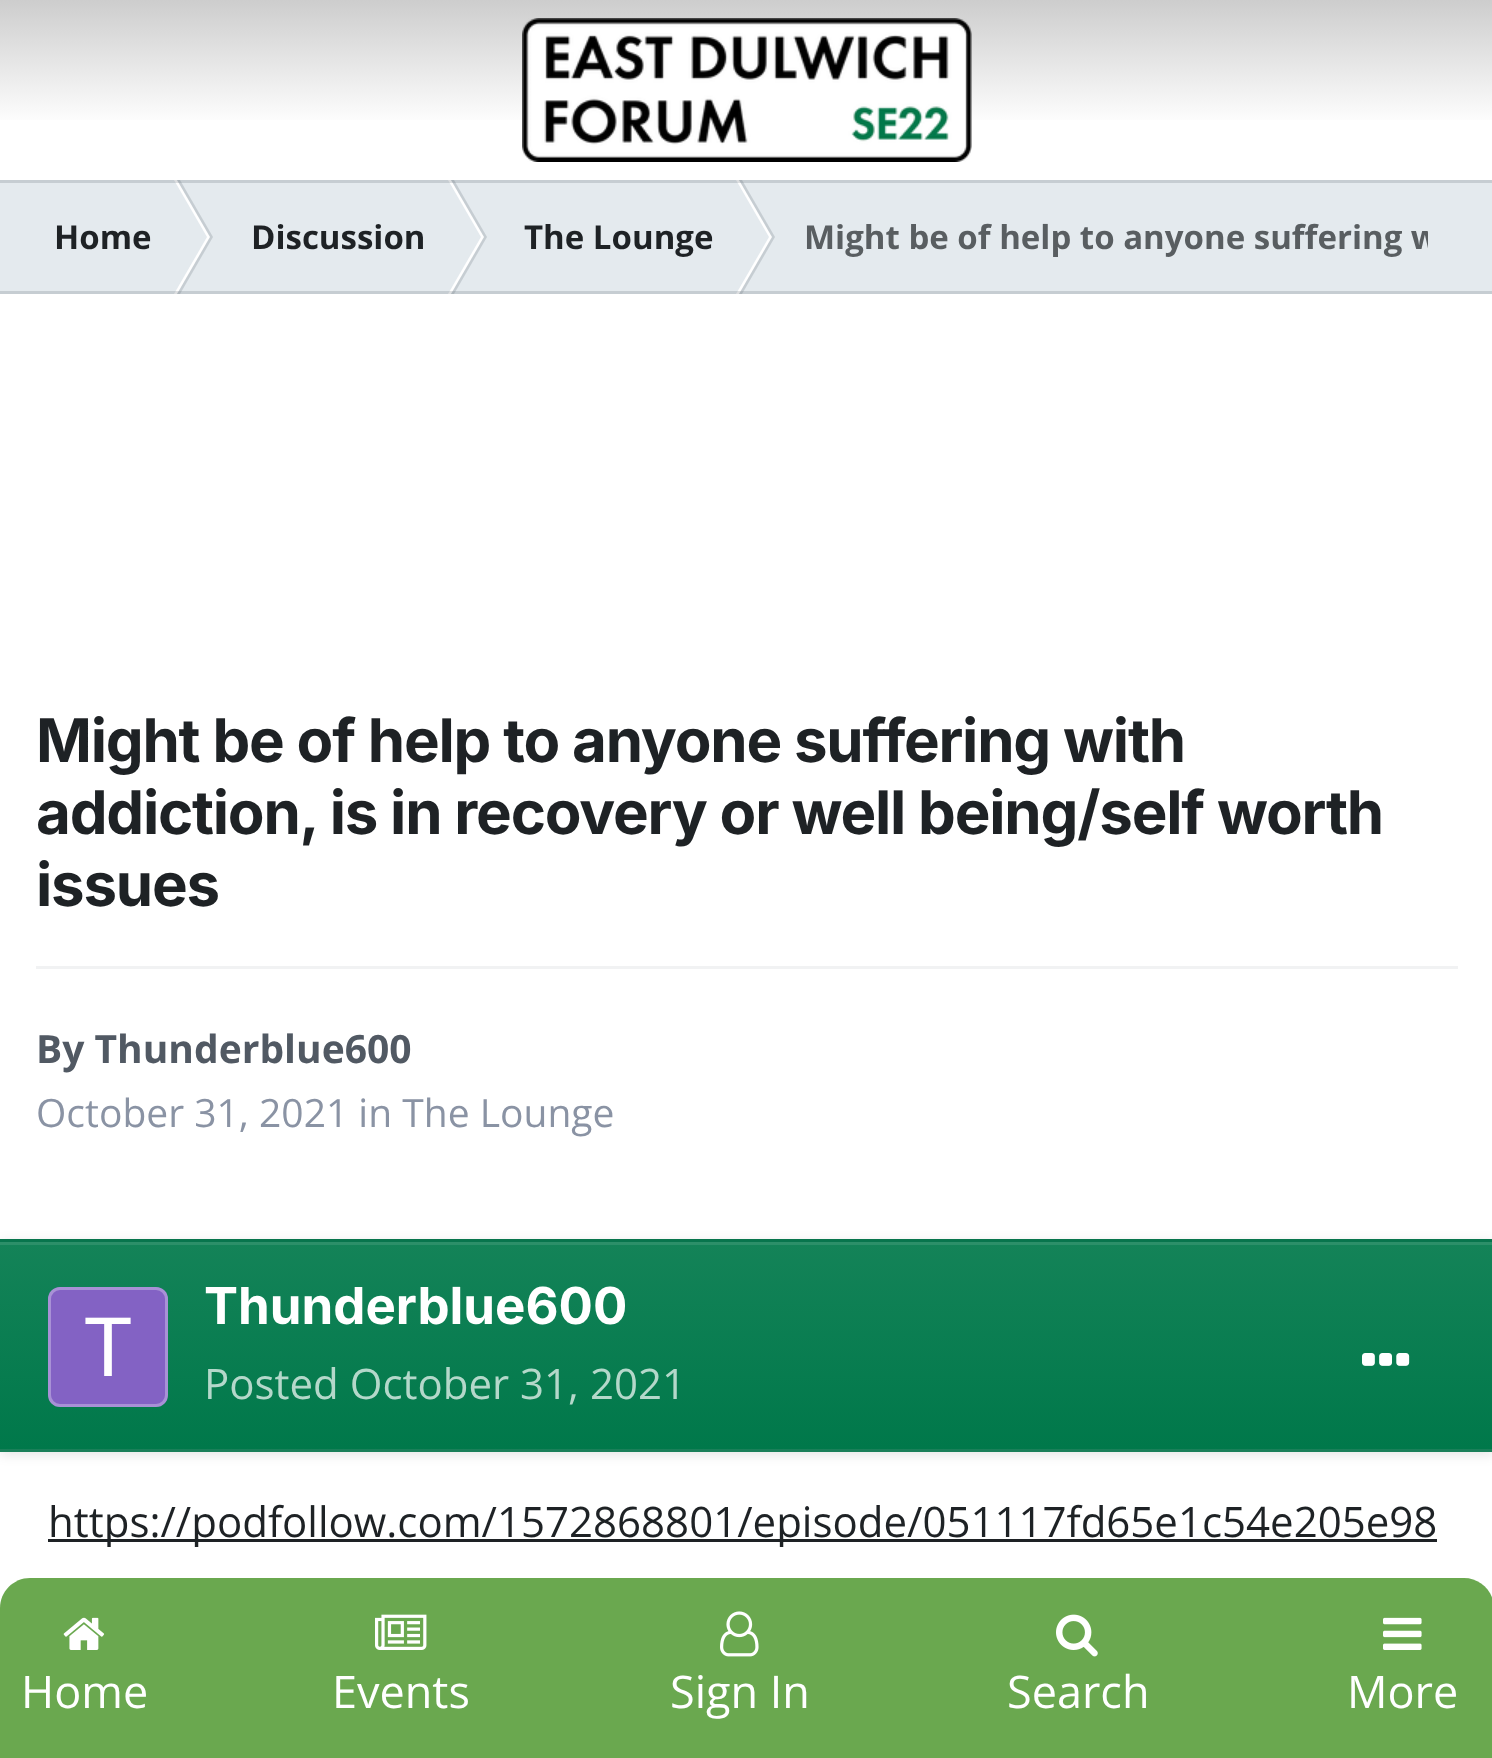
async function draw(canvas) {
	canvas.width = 1492;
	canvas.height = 1758;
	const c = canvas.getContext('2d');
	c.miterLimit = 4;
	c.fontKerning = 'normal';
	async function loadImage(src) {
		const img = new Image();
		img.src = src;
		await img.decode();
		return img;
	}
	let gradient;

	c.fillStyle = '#fff';
	c.fillRect(0, 0, 1492, 1758);
	gradient = c.createLinearGradient(747, 0, 747, 180);
	gradient.addColorStop(0, '#cdcdcd');
	gradient.addColorStop(0.7, '#fff');
	c.fillStyle = gradient;
	c.fillRect(0, 0, 1492, 120);
	c.drawImage(await loadImage('img1.png'), 522, 18, 450, 144);
	c.fillStyle = '#e4eaee';
	c.fillRect(0, 180, 1492, 114);
	c.fillStyle = '#fff';
	c.beginPath();
	c.moveTo(174, 180);
	c.lineTo(177, 180);
	c.lineTo(210, 237);
	c.lineTo(207, 237);
	c.closePath();
	c.fill();
	c.fillStyle = '#51596333';
	c.beginPath();
	c.moveTo(177, 180);
	c.lineTo(180, 180);
	c.lineTo(213, 237);
	c.lineTo(210, 237);
	c.closePath();
	c.fill();
	c.fillStyle = '#fff';
	c.beginPath();
	c.moveTo(448, 180);
	c.lineTo(451, 180);
	c.lineTo(484, 237);
	c.lineTo(481, 237);
	c.closePath();
	c.fill();
	c.fillStyle = '#51596333';
	c.beginPath();
	c.moveTo(451, 180);
	c.lineTo(454, 180);
	c.lineTo(487, 237);
	c.lineTo(484, 237);
	c.closePath();
	c.fill();
	c.fillStyle = '#fff';
	c.beginPath();
	c.moveTo(736, 180);
	c.lineTo(739, 180);
	c.lineTo(772, 237);
	c.lineTo(769, 237);
	c.closePath();
	c.fill();
	c.fillStyle = '#51596333';
	c.beginPath();
	c.moveTo(739, 180);
	c.lineTo(742, 180);
	c.lineTo(775, 237);
	c.lineTo(772, 237);
	c.closePath();
	c.fill();
	c.fillRect(0, 180, 1492, 3);
	c.fillStyle = '#fff';
	c.beginPath();
	c.moveTo(174, 294);
	c.lineTo(177, 294);
	c.lineTo(210, 237);
	c.lineTo(207, 237);
	c.closePath();
	c.fill();
	c.fillStyle = '#51596333';
	c.beginPath();
	c.moveTo(177, 294);
	c.lineTo(180, 294);
	c.lineTo(213, 237);
	c.lineTo(210, 237);
	c.closePath();
	c.fill();
	c.fillStyle = '#fff';
	c.beginPath();
	c.moveTo(448, 294);
	c.lineTo(451, 294);
	c.lineTo(484, 237);
	c.lineTo(481, 237);
	c.closePath();
	c.fill();
	c.fillStyle = '#51596333';
	c.beginPath();
	c.moveTo(451, 294);
	c.lineTo(454, 294);
	c.lineTo(487, 237);
	c.lineTo(484, 237);
	c.closePath();
	c.fill();
	c.fillStyle = '#fff';
	c.beginPath();
	c.moveTo(736, 294);
	c.lineTo(739, 294);
	c.lineTo(772, 237);
	c.lineTo(769, 237);
	c.closePath();
	c.fill();
	c.fillStyle = '#51596333';
	c.beginPath();
	c.moveTo(739, 294);
	c.lineTo(742, 294);
	c.lineTo(775, 237);
	c.lineTo(772, 237);
	c.closePath();
	c.fill();
	c.fillRect(0, 291, 1492, 3);
	c.font = 'bold 33px Open Sans';
	c.fillStyle = '#1e2225';
	for (const [text, x, y] of [
		['Home', 54, 249],
		['Discussion', 251, 249],
		['The Lounge', 524, 249],
	]) {
		c.fillText(text, x, y);
	}
	c.save();
	c.beginPath();
	c.rect(0, 180, 1428, 114);
	c.clip();
	c.fillStyle = '#595e61';
	c.fillText('Might be of help to anyone suffering w', 804, 249);
	c.restore();
	c.letterSpacing = '-1.2px';
	c.font = 'bold 60px Inter';
	for (const [text, x, y] of [
		['Might be of help to anyone suffering with', 36, 762],
		['addiction, is in recovery or well being/self worth', 36, 834],
		['issues', 36, 906],
	]) {
		c.fillText(text, x, y);
	}
	c.fillStyle = '#f1f2f3';
	c.fillRect(36, 966, 1422, 3);
	c.letterSpacing = '0px';
	c.font = 'bold 39px Open Sans';
	c.fillStyle = '#515963';
	c.fillText('By Thunderblue600', 36, 1063);
	c.font = '39px Open Sans';
	c.fillStyle = '#8a93a4';
	c.fillText('October 31, 2021 in The Lounge', 36, 1127);
	c.fillStyle = '#0000001a';
	c.filter = 'blur(6px)';
	c.beginPath();
	c.rect(0, 1242, 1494, 213);
	c.fill();
	c.filter = 'none';
	gradient = c.createLinearGradient(747, 1242, 747, 1449);
	gradient.addColorStop(0, '#148358');
	gradient.addColorStop(1, '#00784a');
	c.fillStyle = gradient;
	c.fillRect(0, 1245, 1492, 204);
	for (const [x, y, w, h, color] of [
		[0, 1242, 1492, 3, '#2c8f69'],
		[0, 1239, 1492, 3, '#08754d'],
		[0, 1449, 1492, 3, '#1a7f59'],
	]) {
		c.fillStyle = color;
		c.fillRect(x, y, w, h);
	}
	c.drawImage(await loadImage('img2.png'), 48, 1287, 120, 120);
	c.beginPath();
	c.roundRect(49.5, 1288.5, 117, 117, 10.5);
	c.strokeStyle = '#ffffff4d';
	c.lineWidth = 3;
	c.stroke();
	c.font = 'bold 51px Inter';
	c.fillStyle = '#fff';
	c.fillText('Thunderblue600', 204, 1324);
	c.font = '42px Open Sans';
	c.fillStyle = '#b4d8ca';
	c.fillText('Posted October 31, 2021', 204, 1399);
	c.drawImage(await loadImage('img3.png'), 1362, 1353, 48, 13);
	c.fillStyle = '#1e2225';
	c.fillRect(48, 1539, 1389, 3);
	c.fillText('https://podfollow.com/1572868801/episode/051117fd65e1c54e205e98', 48, 1537);
	c.fillStyle = '#6aa84f';
	c.beginPath();
	c.moveTo(30, 1578);
	c.lineTo(1464, 1578);
	c.bezierCurveTo(1480.5, 1578, 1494, 1591.5, 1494, 1608);
	c.lineTo(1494, 1758);
	c.lineTo(0, 1758);
	c.lineTo(0, 1608);
	c.bezierCurveTo(0, 1591.5, 13.5, 1578, 30, 1578);
	c.closePath();
	c.fill();
	c.drawImage(await loadImage('img4.png'), 63, 1617, 42, 33);
	c.font = '45px Open Sans';
	c.fillStyle = '#fff';
	c.fillText('Home', 21, 1708);
	c.drawImage(await loadImage('img5.png'), 375, 1614, 52, 36);
	c.fillText('Events', 332, 1708);
	c.drawImage(await loadImage('img6.png'), 720, 1611, 39, 46);
	c.fillText('Sign In', 670, 1708);
	c.drawImage(await loadImage('img7.png'), 1056, 1614, 42, 43);
	c.fillText('Search', 1007, 1708);
	c.drawImage(await loadImage('img8.png'), 1383, 1617, 39, 33);
	c.fillText('More', 1347, 1708);
}

draw(document.querySelector('canvas'));
